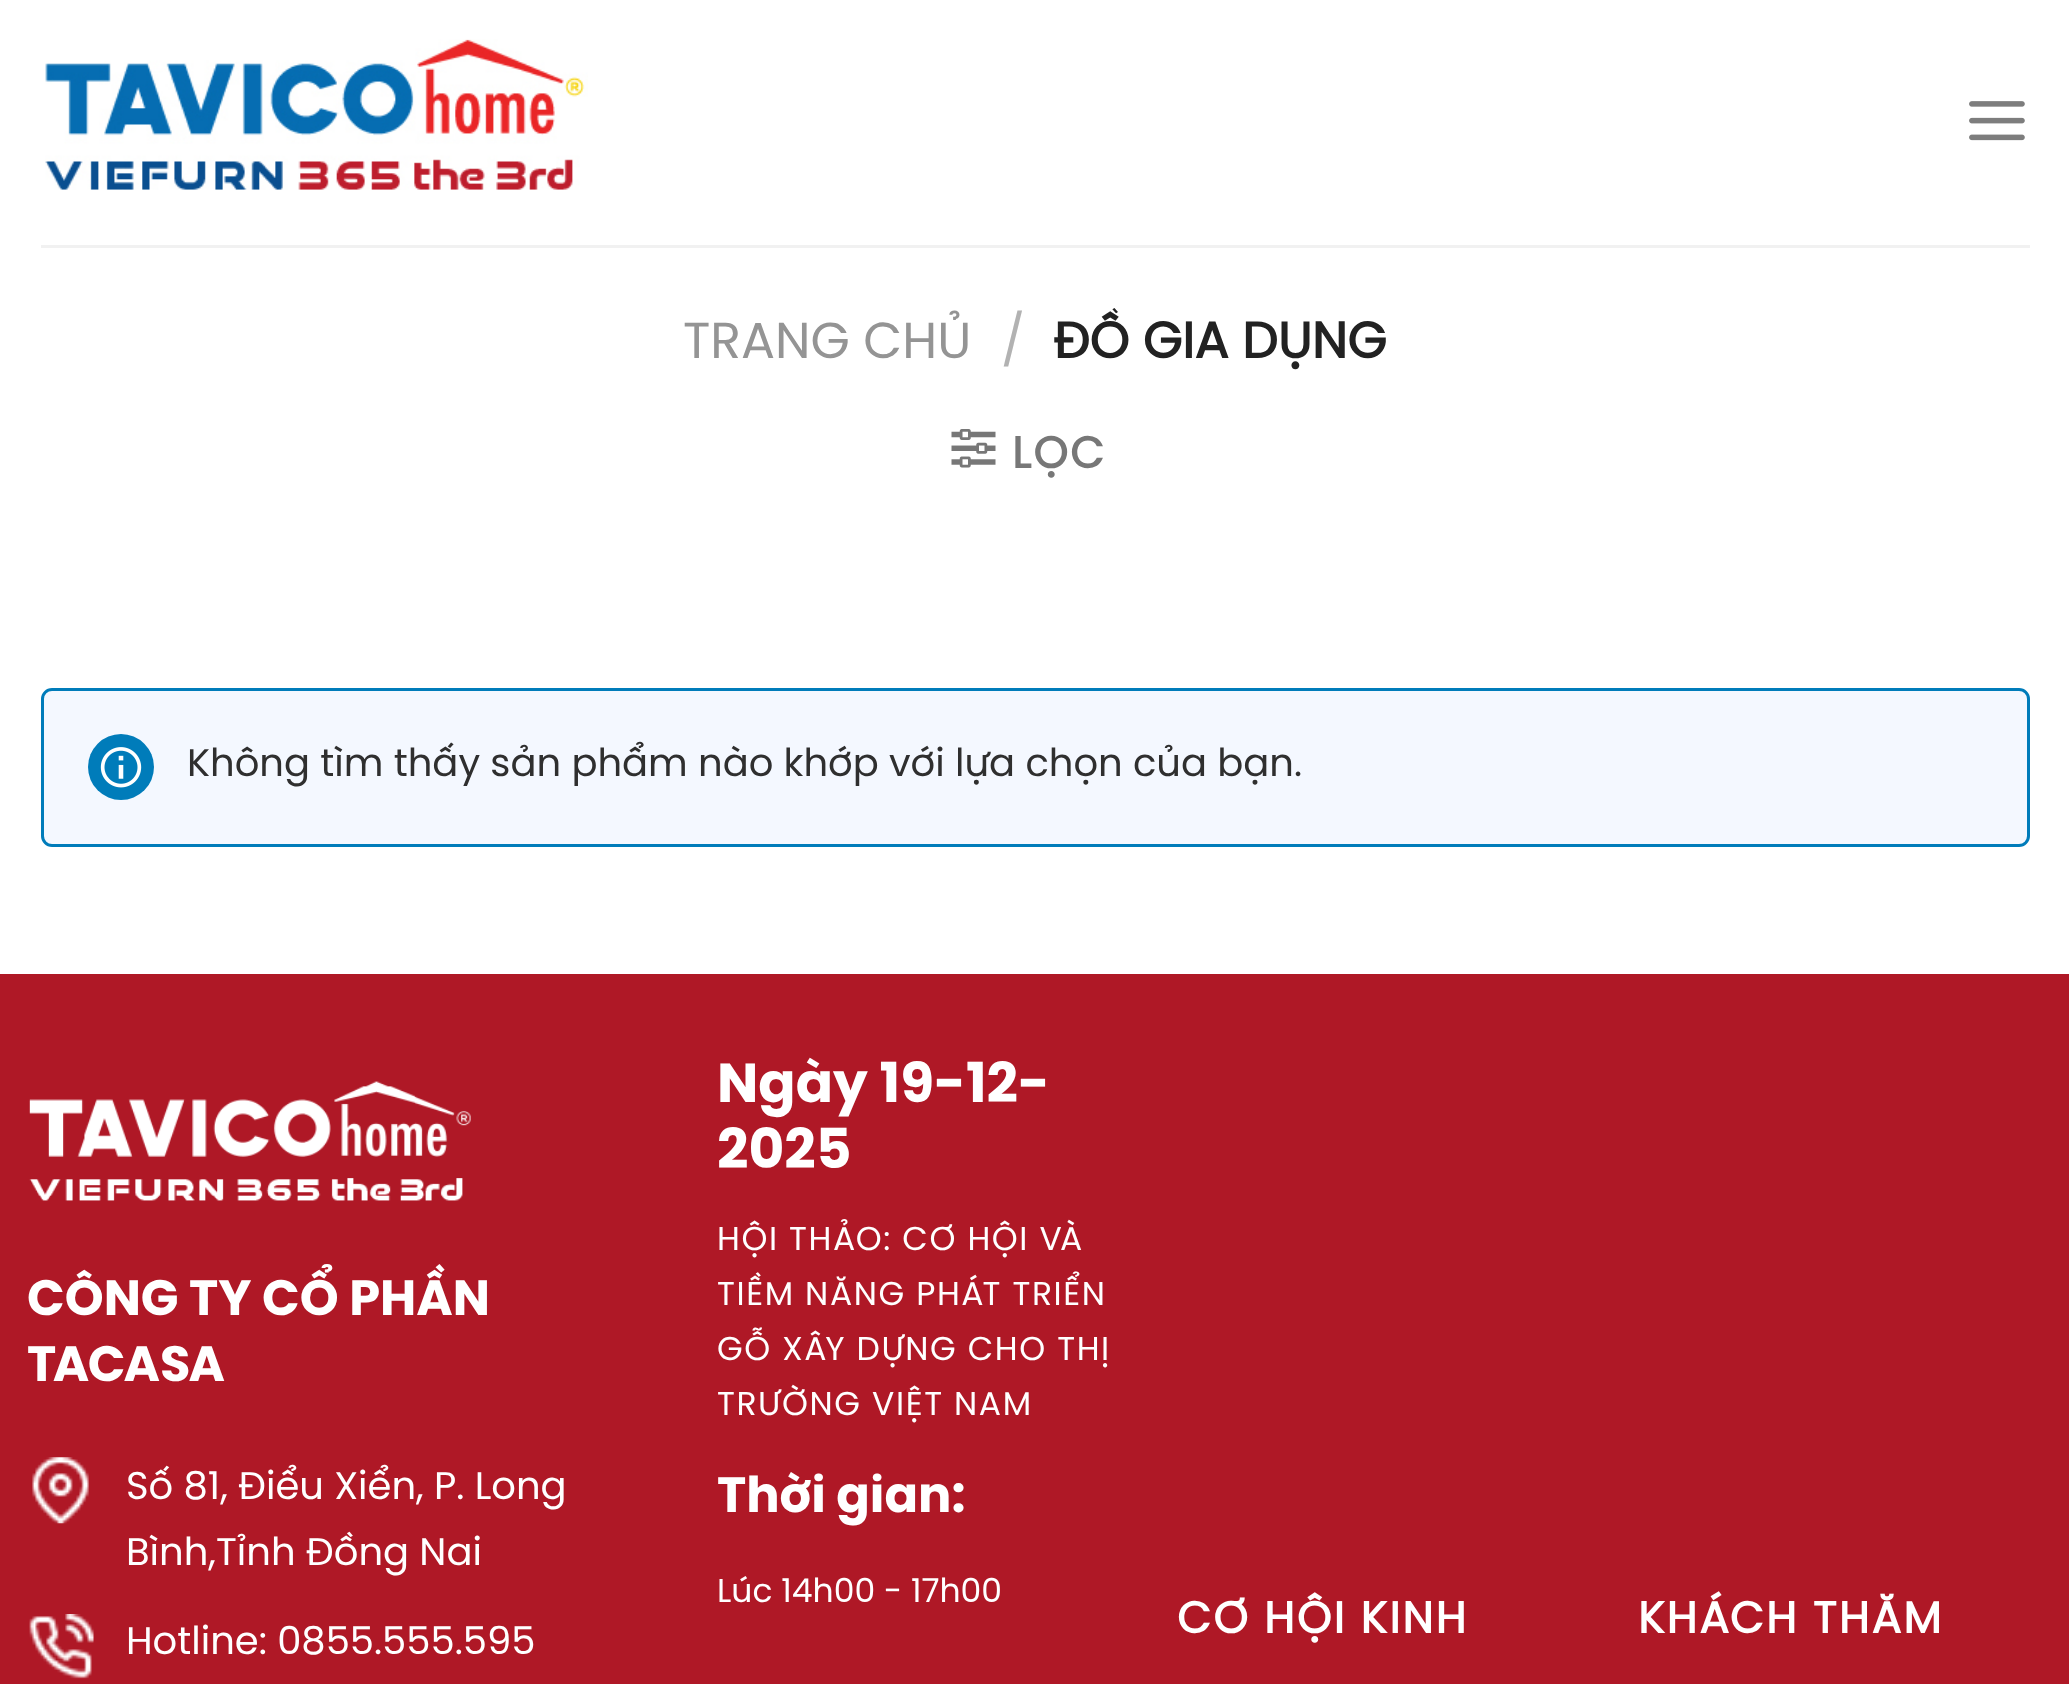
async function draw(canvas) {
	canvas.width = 2069;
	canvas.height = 1684;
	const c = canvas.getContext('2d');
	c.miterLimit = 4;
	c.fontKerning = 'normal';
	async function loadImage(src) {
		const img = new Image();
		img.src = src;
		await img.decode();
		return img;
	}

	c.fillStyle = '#fff';
	c.fillRect(0, 0, 2069, 1684);
	c.drawImage(await loadImage('img1.png'), 45, 39, 543, 151);
	c.drawImage(await loadImage('img2.png'), 1969, 101, 56, 40);
	c.fillStyle = '#f1f1f1';
	c.fillRect(41, 245, 1989, 3);
	c.font = '50.5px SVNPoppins';
	c.fillStyle = '#949494';
	c.fillText('TRANG CHỦ', 683, 358);
	c.fillStyle = '#b2b2b2';
	c.fillText('/', 1001, 358);
	c.font = 'bold 50.5px SVNPoppins';
	c.fillStyle = '#222';
	c.fillText('ĐỒ GIA DỤNG', 1053, 358);
	c.drawImage(await loadImage('img3.png'), 951, 429, 45, 39);
	c.letterSpacing = '2.25px';
	c.font = 'bold 44px SVNPoppins';
	c.fillStyle = '#777';
	c.fillText('LỌC', 1012, 468);
	c.fillStyle = '#f4f8ff';
	c.beginPath();
	c.roundRect(42.5, 689.5, 1986, 156, 9.5);
	c.fill();
	c.strokeStyle = '#007cba';
	c.lineWidth = 3;
	c.stroke();
	c.fillStyle = '#007cba';
	c.beginPath();
	c.arc(121, 767, 33, 0, 2 * Math.PI);
	c.fill();
	c.drawImage(await loadImage('img4.png'), 100, 747, 42, 41);
	c.letterSpacing = '0px';
	c.font = '38.5px SVNPoppins';
	c.fillStyle = '#2f2f2f';
	c.fillText('Không tìm thấy sản phẩm nào khớp với lựa chọn của bạn.', 187, 776);
	c.fillStyle = '#af1826';
	c.fillRect(0, 974, 2069, 710);
	c.drawImage(await loadImage('img5.png'), 29, 1081, 442, 120);
	c.font = 'bold 49.5px "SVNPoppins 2"';
	c.fillStyle = '#fff';
	c.fillText('CÔNG TY CỔ PHẦN', 27, 1315);
	c.fillText('TACASA', 27, 1381);
	c.drawImage(await loadImage('img6.png'), 32, 1457, 57, 67);
	c.font = '38.5px SVNPoppins';
	c.fillText('Số 81, Điểu Xiển, P. Long', 126, 1499);
	c.fillText('Bình,Tỉnh Đồng Nai', 126, 1565);
	c.drawImage(await loadImage('img7.png'), 29, 1614, 65, 65);
	c.fillText('Hotline: 0855.555.595', 126, 1654);
	c.font = 'bold 55px "SVNPoppins 2"';
	c.fillText('Ngày 19-12-', 717, 1102);
	c.fillText('2025', 717, 1168);
	c.letterSpacing = '1.6px';
	c.font = '33px SVNPoppins';
	for (const [text, x, y] of [
		['HỘI THẢO: CƠ HỘI VÀ', 717, 1250],
		['TIỀM NĂNG PHÁT TRIỂN', 717, 1305],
		['GỖ XÂY DỰNG CHO THỊ', 717, 1360],
		['TRƯỜNG VIỆT NAM', 717, 1415],
	]) {
		c.fillText(text, x, y);
	}
	c.letterSpacing = '0px';
	c.font = 'bold 49.5px "SVNPoppins 2"';
	c.fillText('Thời gian:', 717, 1512);
	c.font = '33px SVNPoppins';
	c.fillText('Lúc 14h00 - 17h00', 717, 1602);
	c.letterSpacing = '2.25px';
	c.font = 'bold 44px SVNPoppins';
	c.fillText('CƠ HỘI KINH', 1177, 1633);
	c.fillText('KHÁCH THĂM', 1638, 1633);
}

draw(document.querySelector('canvas'));
